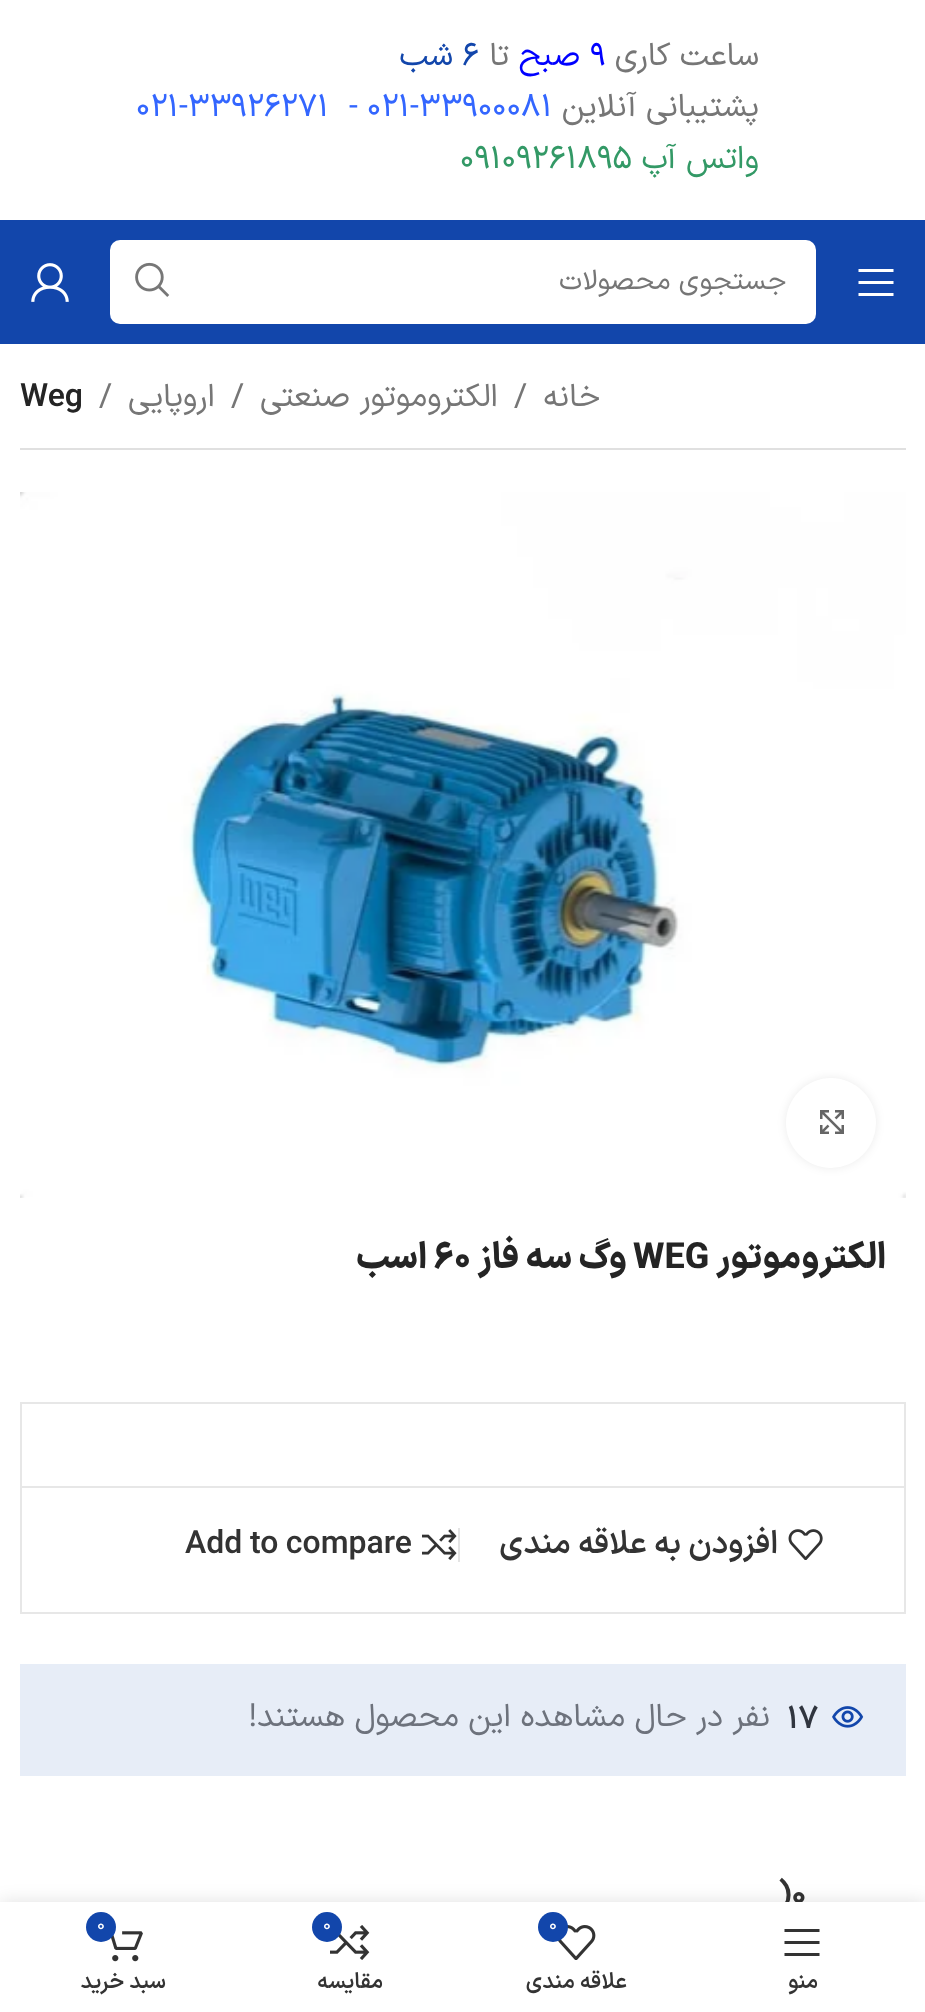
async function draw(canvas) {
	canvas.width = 925;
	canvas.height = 2012;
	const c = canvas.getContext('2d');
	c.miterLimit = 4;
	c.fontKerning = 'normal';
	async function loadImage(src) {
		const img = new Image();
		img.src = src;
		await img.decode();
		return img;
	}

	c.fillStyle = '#fff';
	c.fillRect(0, 0, 925, 2012);
	c.fillStyle = '#e7edf7';
	c.fillRect(20, 1664, 886, 112);
	c.direction = 'rtl';
	c.font = '32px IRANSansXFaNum';
	c.fillStyle = '#767676';
	c.fillText('ساعت کاری', 759, 65);
	c.direction = 'ltr';
	c.fillStyle = '#00f';
	c.fillText('9', 590, 65);
	c.direction = 'rtl';
	c.fillText('صبح', 580, 65);
	c.fillStyle = '#767676';
	c.fillText('تا', 509, 65);
	c.direction = 'ltr';
	c.fillStyle = '#1246ab';
	c.fillText('6', 462, 65);
	c.direction = 'rtl';
	c.fillText('شب', 453, 65);
	c.fillStyle = '#767676';
	c.fillText('پشتیبانی آنلاین', 759, 116);
	c.direction = 'ltr';
	c.fillStyle = '#36f';
	for (const [text, x, y] of [
		['021-33900081', 367, 116],
		['-', 349, 116],
		['021-33926271', 136, 116],
	]) {
		c.fillText(text, x, y);
	}
	c.direction = 'rtl';
	c.fillStyle = '#396';
	c.fillText('واتس آپ', 759, 168);
	c.direction = 'ltr';
	c.fillText('09109261895', 460, 168);
	c.fillStyle = '#1246ab';
	c.fillRect(0, 220, 925, 124);
	c.fillStyle = '#fff';
	c.beginPath();
	c.moveTo(858.5, 272);
	c.lineTo(893.5, 272);
	c.lineTo(893.5, 269);
	c.lineTo(858.5, 269);
	c.closePath();
	c.moveTo(858.5, 284);
	c.lineTo(893.5, 284);
	c.lineTo(893.5, 281);
	c.lineTo(858.5, 281);
	c.closePath();
	c.moveTo(858.5, 296);
	c.lineTo(893.5, 296);
	c.lineTo(893.5, 293);
	c.lineTo(858.5, 293);
	c.closePath();
	c.fill();
	c.beginPath();
	c.roundRect(110, 240, 706, 84, 10);
	c.fill();
	c.direction = 'rtl';
	c.font = '28px IRANSansXFaNum';
	c.fillStyle = '#767676';
	c.fillText('جستجوی محصولات', 786, 289);
	c.drawImage(await loadImage('img1.png'), 135, 262, 35, 35);
	c.drawImage(await loadImage('img2.png'), 31, 263, 38, 39);
	c.font = '32px IRANSansXFaNum';
	c.fillText('خانه', 600, 406);
	c.direction = 'ltr';
	c.fillText('/', 514, 406);
	c.direction = 'rtl';
	c.fillText('الکتروموتور صنعتی', 498, 406);
	c.direction = 'ltr';
	c.fillText('/', 231, 406);
	c.direction = 'rtl';
	c.fillText('اروپایی', 215, 406);
	c.direction = 'ltr';
	c.fillText('/', 99, 406);
	c.font = '600 32px IRANSansXFaNum';
	c.fillStyle = '#242424';
	c.fillText('Weg', 20, 406);
	c.fillStyle = '#e0e0e0';
	c.fillRect(20, 448, 886, 2);
	c.drawImage(await loadImage('img3.png'), 20, 492, 886, 706);
	c.fillStyle = '#00000014';
	c.filter = 'blur(5px)';
	c.beginPath();
	c.roundRect(786, 1078, 90, 90, 45);
	c.fill();
	c.filter = 'none';
	c.fillStyle = '#fff';
	c.beginPath();
	c.arc(831, 1123, 45, 0, 2 * Math.PI);
	c.fill();
	c.drawImage(await loadImage('img4.png'), 820, 1110, 24, 24);
	c.direction = 'rtl';
	c.font = '800 36px IRANSansXFaNum';
	c.fillStyle = '#242424';
	c.fillText('الکتروموتور', 886, 1268);
	c.direction = 'ltr';
	c.fillText('WEG', 633, 1268);
	c.direction = 'rtl';
	c.fillText('وگ سه فاز', 627, 1268);
	c.direction = 'ltr';
	c.fillText('60', 433, 1268);
	c.direction = 'rtl';
	c.fillText('اسب', 427, 1268);
	c.strokeStyle = '#e7e7e7';
	c.lineWidth = 2;
	c.strokeRect(21, 1403, 884, 84);
	c.fillStyle = '#e7e7e7';
	c.beginPath();
	c.moveTo(906, 1488);
	c.lineTo(906, 1614);
	c.lineTo(904, 1612);
	c.lineTo(904, 1488);
	c.closePath();
	c.fill();
	c.fillStyle = '#1010101a';
	c.beginPath();
	c.moveTo(906, 1614);
	c.lineTo(20, 1614);
	c.lineTo(22, 1612);
	c.lineTo(904, 1612);
	c.closePath();
	c.fill();
	c.beginPath();
	c.moveTo(20, 1614);
	c.lineTo(20, 1488);
	c.lineTo(22, 1488);
	c.lineTo(22, 1612);
	c.closePath();
	c.fill();
	c.fillStyle = '#e4e4e4';
	c.fillRect(458, 1528, 2, 34);
	c.drawImage(await loadImage('img5.png'), 788, 1529, 35, 31);
	c.font = '600 32px IRANSansXFaNum';
	c.fillStyle = '#333';
	c.fillText('افزودن به علاقه مندی', 778, 1553);
	c.drawImage(await loadImage('img6.png'), 422, 1529, 35, 31);
	c.direction = 'ltr';
	c.fillText('Add to compare', 185, 1553);
	c.drawImage(await loadImage('img7.png'), 832, 1706, 32, 22);
	c.fillStyle = '#30353f';
	c.fillText('17', 787, 1728);
	c.direction = 'rtl';
	c.font = '32px IRANSansXFaNum';
	c.fillStyle = '#6d727c';
	c.fillText('نفر در حال مشاهده این محصول هستند!', 770, 1726);
	c.direction = 'ltr';
	c.font = 'bold 32px IRANSansXFaNum';
	c.fillStyle = '#333';
	c.fillText(')0', 778, 1904);
	c.fillStyle = '#0000001f';
	c.filter = 'blur(9px)';
	c.beginPath();
	c.rect(0, 1902, 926, 110);
	c.fill();
	c.filter = 'none';
	c.fillStyle = '#fff';
	c.fillRect(0, 1902, 925, 110);
	c.fillStyle = '#333';
	c.beginPath();
	c.moveTo(784.5, 1932);
	c.lineTo(819.5, 1932);
	c.lineTo(819.5, 1929);
	c.lineTo(784.5, 1929);
	c.closePath();
	c.moveTo(784.5, 1944);
	c.lineTo(819.5, 1944);
	c.lineTo(819.5, 1941);
	c.lineTo(784.5, 1941);
	c.closePath();
	c.moveTo(784.5, 1956);
	c.lineTo(819.5, 1956);
	c.lineTo(819.5, 1953);
	c.lineTo(784.5, 1953);
	c.closePath();
	c.fill();
	c.direction = 'rtl';
	c.font = '600 22px IRANSansXFaNum';
	c.fillText('منو', 818, 1988);
	c.drawImage(await loadImage('img8.png'), 558, 1925, 38, 35);
	c.fillStyle = '#1246ab';
	c.beginPath();
	c.arc(553, 1927, 15, 0, 2 * Math.PI);
	c.fill();
	c.direction = 'ltr';
	c.font = '18px IRANSansXFaNum';
	c.fillStyle = '#fff';
	c.fillText('0', 549, 1930);
	c.direction = 'rtl';
	c.font = '600 22px IRANSansXFaNum';
	c.fillStyle = '#333';
	c.fillText('علاقه مندی', 627, 1988);
	c.drawImage(await loadImage('img9.png'), 330, 1925, 40, 35);
	c.fillStyle = '#1246ab';
	c.beginPath();
	c.arc(327, 1927, 15, 0, 2 * Math.PI);
	c.fill();
	c.direction = 'ltr';
	c.font = '18px IRANSansXFaNum';
	c.fillStyle = '#fff';
	c.fillText('0', 323, 1930);
	c.direction = 'rtl';
	c.font = '600 22px IRANSansXFaNum';
	c.fillStyle = '#333';
	c.fillText('مقایسه', 383, 1988);
	c.drawImage(await loadImage('img10.png'), 111, 1931, 32, 31);
	c.fillStyle = '#1246ab';
	c.beginPath();
	c.arc(101, 1927, 15, 0, 2 * Math.PI);
	c.fill();
	c.direction = 'ltr';
	c.font = '18px IRANSansXFaNum';
	c.fillStyle = '#fff';
	c.fillText('0', 97, 1930);
	c.direction = 'rtl';
	c.font = '600 22px IRANSansXFaNum';
	c.fillStyle = '#333';
	c.fillText('سبد خرید', 166, 1988);
}

draw(document.querySelector('canvas'));
